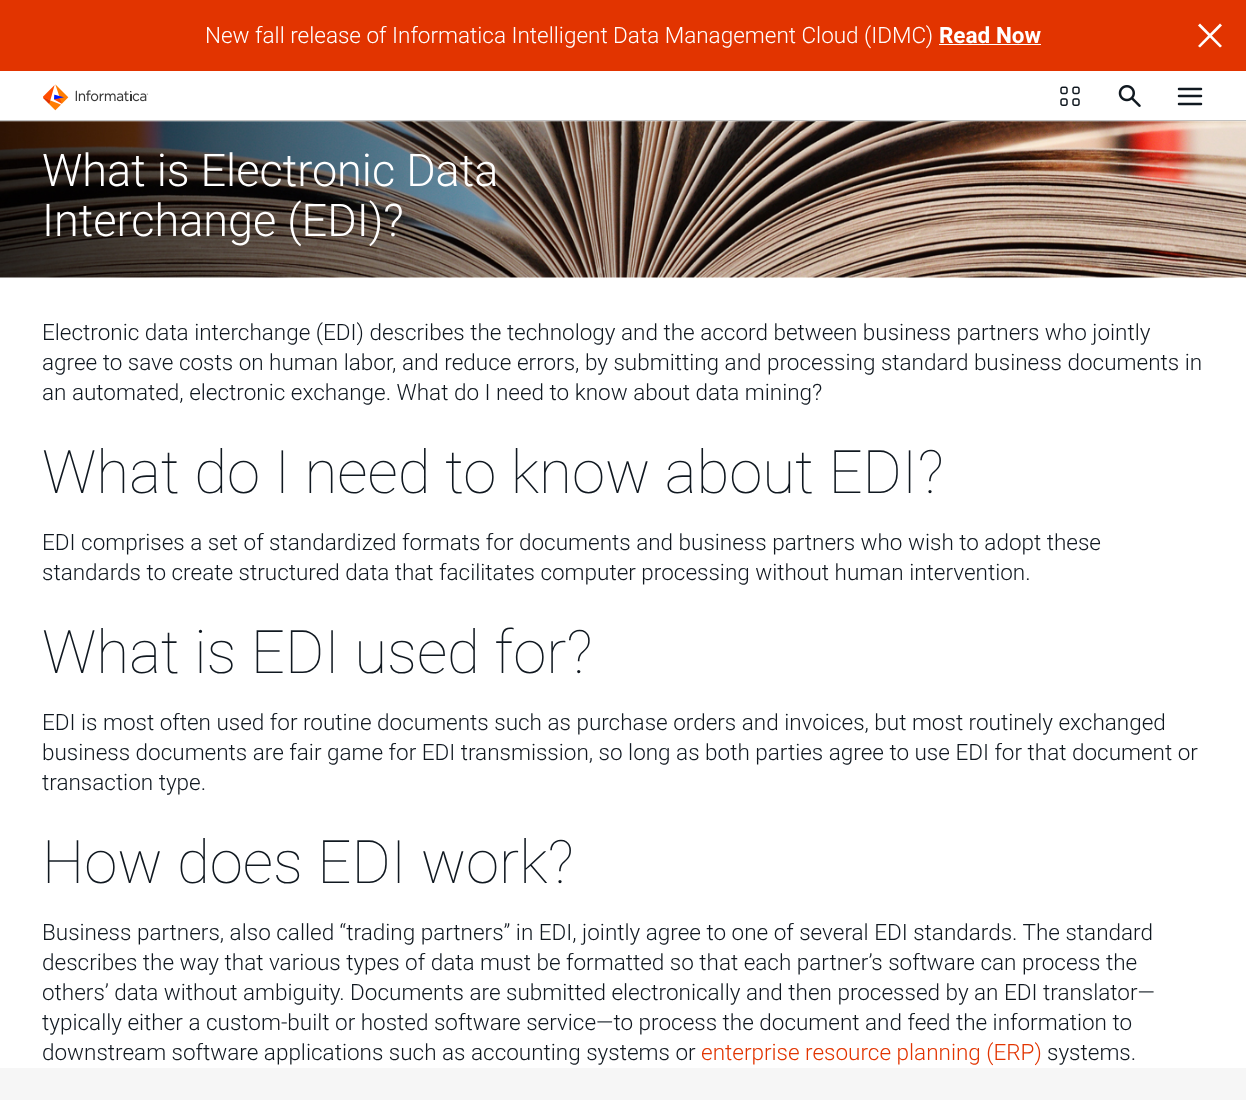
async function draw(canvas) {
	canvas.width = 1246;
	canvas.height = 1100;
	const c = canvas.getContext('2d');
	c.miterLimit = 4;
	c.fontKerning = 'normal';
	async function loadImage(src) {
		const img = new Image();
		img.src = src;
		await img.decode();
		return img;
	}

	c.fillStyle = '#fff';
	c.fillRect(0, 0, 1246, 1100);
	c.fillStyle = '#e23400';
	c.fillRect(0, 0, 1246, 71);
	c.font = '300 22.5px Roboto';
	c.fillStyle = '#fff';
	c.fillText('New fall release of Informatica Intelligent Data Management Cloud (IDMC)', 205, 43);
	c.font = 'bold 22.5px Roboto';
	c.fillText('Read Now', 939, 43);
	c.fillRect(939, 44, 102, 1);
	c.beginPath();
	c.moveTo(1220, 23.5);
	c.lineTo(1222, 25.5);
	c.lineTo(1200, 47.5);
	c.lineTo(1198, 46);
	c.closePath();
	c.fill();
	c.beginPath();
	c.moveTo(1198, 25.5);
	c.lineTo(1200, 23.5);
	c.lineTo(1222, 46);
	c.lineTo(1220, 47.5);
	c.closePath();
	c.fill();
	c.fillStyle = '#c1c1c1';
	c.fillRect(0, 120, 1246, 1);
	c.drawImage(await loadImage('img1.png'), 43, 84, 106, 27);
	c.drawImage(await loadImage('img2.png'), 1060, 86, 20, 20);
	c.drawImage(await loadImage('img3.png'), 1118, 85, 23, 22);
	c.beginPath();
	c.moveTo(1179, 96);
	c.lineTo(1201, 96);
	c.moveTo(1179, 89);
	c.lineTo(1201, 89);
	c.moveTo(1179, 104);
	c.lineTo(1201, 104);
	c.strokeStyle = '#101820';
	c.lineWidth = 2.5;
	c.lineCap = 'round';
	c.lineJoin = 'round';
	c.stroke();
	c.drawImage(await loadImage('img4.png'), 0, 121, 1246, 157);
	c.font = '300 45px Roboto';
	c.fillStyle = '#fff';
	c.fillText('What is Electronic Data', 42, 186);
	c.fillText('Interchange (EDI)?', 42, 236);
	c.font = '300 22.5px Roboto';
	c.fillStyle = '#101820';
	for (const [text, x, y] of [
		['Electronic data interchange (EDI) describes the technology and the accord between business partners who jointly', 42, 340],
		['agree to save costs on human labor, and reduce errors, by submitting and processing standard business documents in', 42, 370],
		['an automated, electronic exchange. What do I need to know about data mining?', 42, 400],
	]) {
		c.fillText(text, x, y);
	}
	c.font = '100 60px Roboto';
	c.fillText('What do I need to know about EDI?', 42, 493);
	c.font = '300 22.5px Roboto';
	c.fillText('EDI comprises a set of standardized formats for documents and business partners who wish to adopt these', 42, 550);
	c.fillText('standards to create structured data that facilitates computer processing without human intervention.', 42, 580);
	c.font = '100 60px Roboto';
	c.fillText('What is EDI used for?', 42, 673);
	c.font = '300 22.5px Roboto';
	for (const [text, x, y] of [
		['EDI is most often used for routine documents such as purchase orders and invoices, but most routinely exchanged', 42, 730],
		['business documents are fair game for EDI transmission, so long as both parties agree to use EDI for that document or', 42, 760],
		['transaction type.', 42, 790],
	]) {
		c.fillText(text, x, y);
	}
	c.font = '100 60px Roboto';
	c.fillText('How does EDI work?', 42, 883);
	c.font = '300 22.5px Roboto';
	for (const [text, x, y] of [
		['Business partners, also called “trading partners” in EDI, jointly agree to one of several EDI standards. The standard', 42, 940],
		['describes the way that various types of data must be formatted so that each partner’s software can process the', 42, 970],
		['others’ data without ambiguity. Documents are submitted electronically and then processed by an EDI translator—', 42, 1000],
		['typically either a custom-built or hosted software service—to process the document and feed the information to', 42, 1030],
		['downstream software applications such as accounting systems or', 42, 1060],
	]) {
		c.fillText(text, x, y);
	}
	c.fillStyle = '#e23400';
	c.fillText('enterprise resource planning (ERP)', 701, 1060);
	c.fillStyle = '#101820';
	c.fillText('systems.', 1047, 1060);
	c.fillStyle = '#f6f6f6';
	c.fillRect(0, 1068, 1246, 32);
}

draw(document.querySelector('canvas'));
